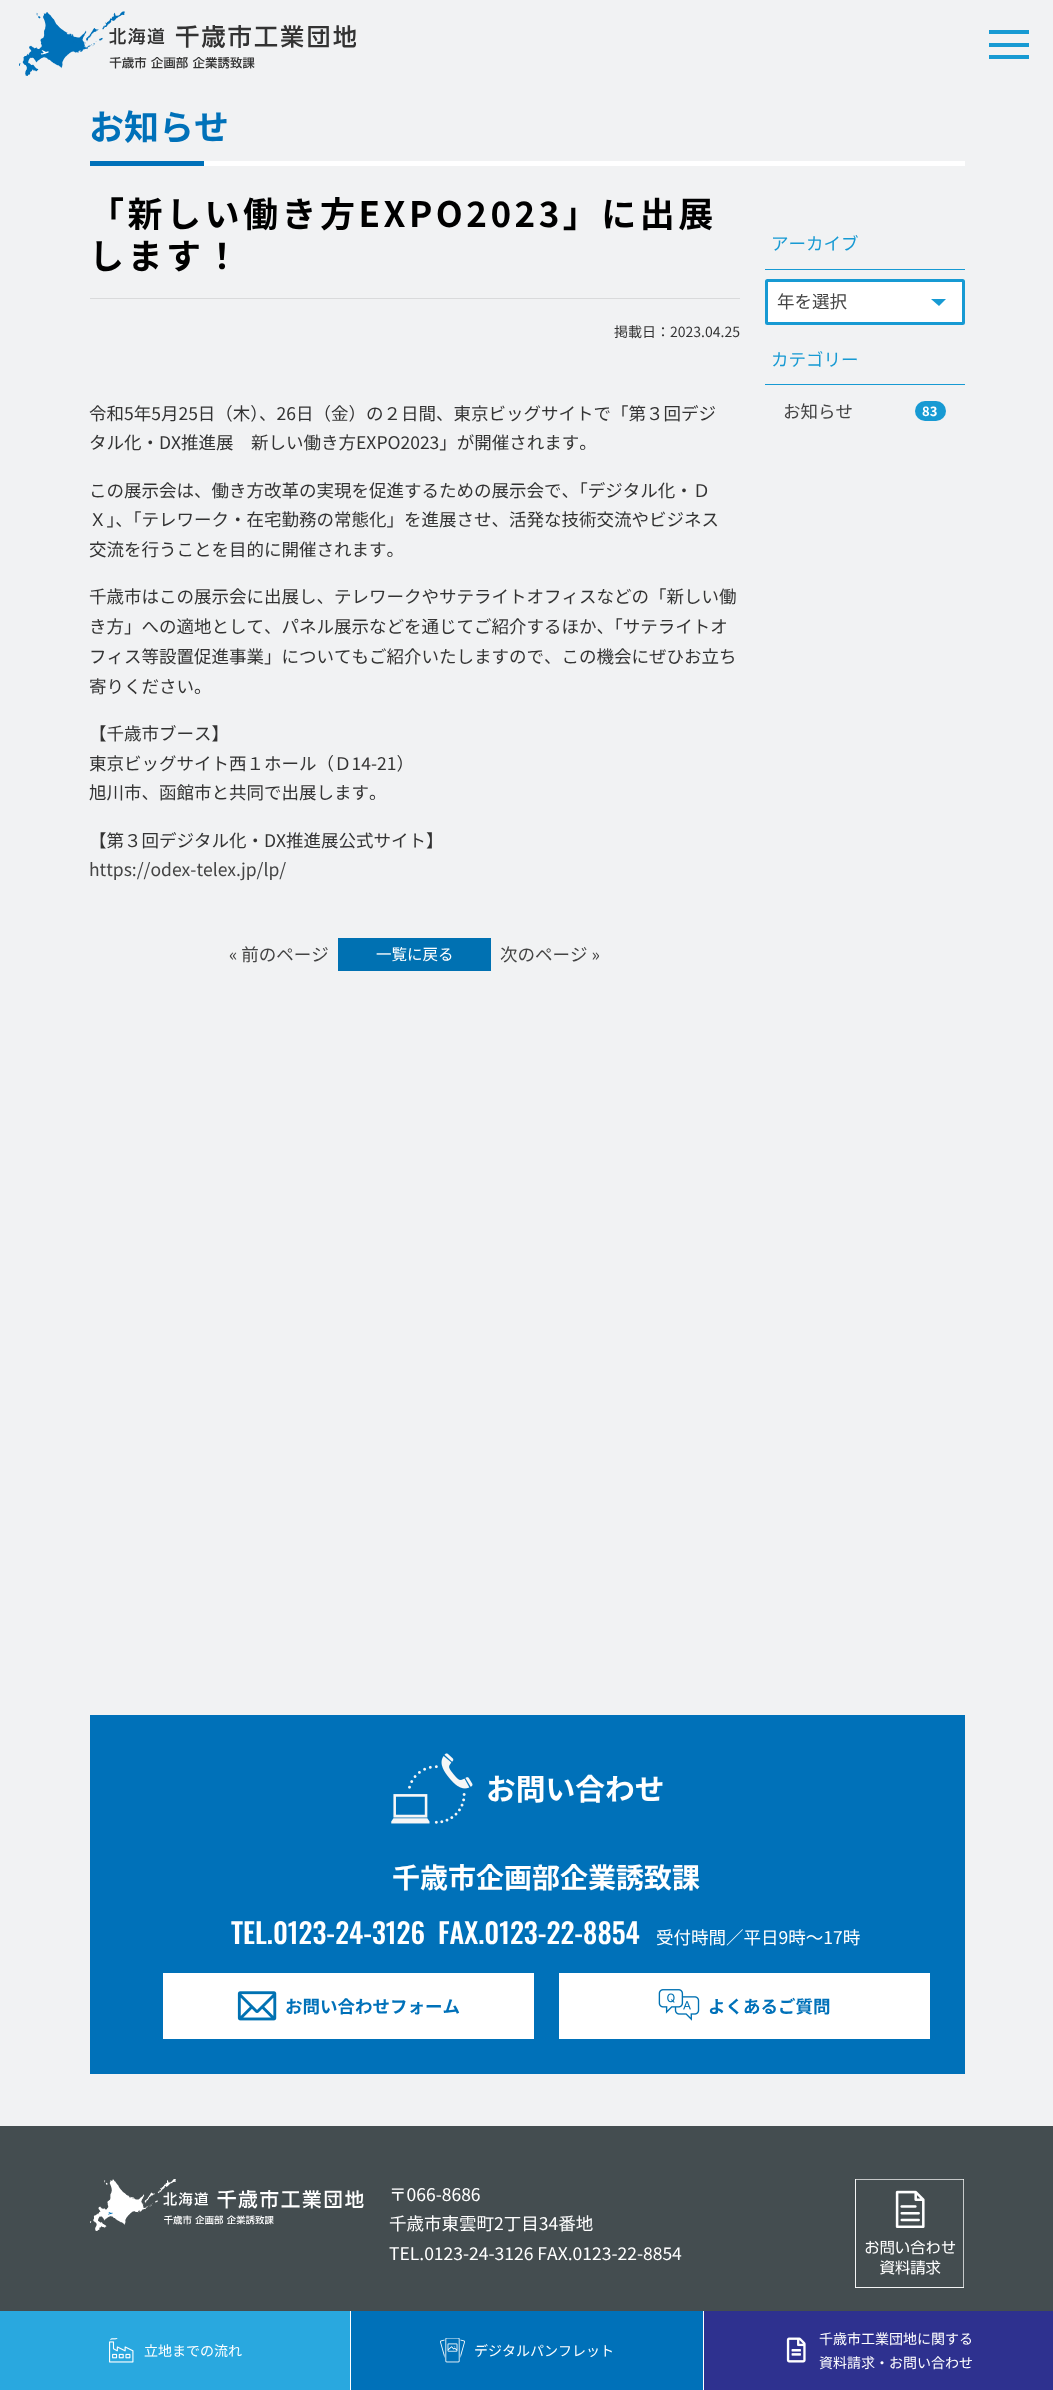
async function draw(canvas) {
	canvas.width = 1053;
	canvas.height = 2390;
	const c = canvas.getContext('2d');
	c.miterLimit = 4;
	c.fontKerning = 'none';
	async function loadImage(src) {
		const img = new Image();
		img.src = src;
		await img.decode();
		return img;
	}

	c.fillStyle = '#f1f2f3';
	c.fillRect(0, 0, 1053, 2390);
	c.drawImage(await loadImage('img1.png'), 19, 11, 337, 65);
	for (const [x, y, w, h, color] of [
		[989, 30, 40, 4, '#179ad3'],
		[989, 43, 40, 4, '#179ad3'],
		[989, 55, 40, 4, '#179ad3'],
		[204, 161, 761, 5, '#fff'],
	]) {
		c.fillStyle = color;
		c.fillRect(x, y, w, h);
	}
	c.font = 'bold 35px Noto Sans JP';
	c.fillStyle = '#0071b9';
	c.fillText('お知らせ', 89, 140);
	c.fillRect(90, 161, 114, 5);
	c.letterSpacing = '3.5px';
	c.fillStyle = '#000';
	c.fillText('「新しい働き方EXPO2023」に出展', 89, 227);
	c.fillText('します！', 89, 269);
	c.fillStyle = '#d9dadb';
	c.fillRect(90, 298, 650, 1);
	c.letterSpacing = '0px';
	c.font = '14px Noto Sans JP';
	c.fillStyle = '#333';
	c.fillText('掲載日：2023.04.25', 614, 337);
	c.font = '17.5px Noto Sans JP';
	for (const [text, x, y] of [
		['令和5年5月25日（木）、26日（金）の２日間、東京ビッグサイトで「第３回デジ', 89, 420],
		['タル化・DX推進展　新しい働き方EXPO2023」が開催されます。', 89, 449],
		['この展示会は、働き方改革の実現を促進するための展示会で、「デジタル化・Ｄ', 89, 497],
		['Ｘ」、「テレワーク・在宅勤務の常態化」を進展させ、活発な技術交流やビジネス', 89, 526],
		['交流を行うことを目的に開催されます。', 89, 556],
		['千歳市はこの展示会に出展し、テレワークやサテライトオフィスなどの「新しい働', 89, 603],
		['き方」への適地として、パネル展示などを通じてご紹介するほか、「サテライトオ', 89, 633],
		['フィス等設置促進事業」についてもご紹介いたしますので、この機会にぜひお立ち', 89, 663],
		['寄りください。', 89, 693],
		['【千歳市ブース】', 89, 740],
		['東京ビッグサイト西１ホール（Ｄ14-21）', 89, 770],
		['旭川市、函館市と共同で出展します。', 89, 799],
		['【第３回デジタル化・DX推進展公式サイト】', 89, 847],
	]) {
		c.fillText(text, x, y);
	}
	c.fillStyle = '#444';
	c.fillText('https://odex-telex.jp/lp/', 89, 876);
	c.fillText('« 前のページ', 229, 961);
	c.fillStyle = '#0071b2';
	c.fillRect(338, 938, 153, 33);
	c.font = '15.5px Noto Sans JP';
	c.fillStyle = '#fff';
	c.fillText('一覧に戻る', 376, 960);
	c.font = '17.5px Noto Sans JP';
	c.fillStyle = '#444';
	c.fillText('次のページ »', 500, 961);
	c.fillStyle = '#179ad3';
	c.fillRect(765, 269, 200, 1);
	c.fillText('アーカイブ', 771, 250);
	c.fillStyle = '#fff';
	c.beginPath();
	c.roundRect(766.5, 280.5, 197, 43, 1);
	c.fill();
	c.strokeStyle = '#179ad3';
	c.lineWidth = 3;
	c.stroke();
	c.fillStyle = '#444';
	c.fillText('年を選択', 777, 308);
	c.fillStyle = '#179ad3';
	c.beginPath();
	c.moveTo(931, 299);
	c.lineTo(946, 299);
	c.lineTo(939, 306);
	c.closePath();
	c.fill();
	c.fillRect(765, 384, 200, 1);
	c.fillText('カテゴリー', 771, 366);
	c.fillStyle = '#444';
	c.fillText('お知らせ', 783, 418);
	c.fillStyle = '#179ad3';
	c.beginPath();
	c.roundRect(915, 401, 31, 20, 10);
	c.fill();
	c.font = 'bold 13px Noto Sans JP';
	c.fillStyle = '#fff';
	c.fillText('83', 922, 416);
	c.fillStyle = '#0071b9';
	c.fillRect(90, 1715, 875, 359);
	c.drawImage(await loadImage('img2.png'), 391, 1753, 82, 71);
	c.font = 'bold 29.75px Noto Sans JP';
	c.fillStyle = '#fff';
	c.fillText('お問い合わせ', 486, 1800);
	c.font = 'bold 28px Noto Sans JP';
	c.fillText('千歳市企画部企業誘致課', 392, 1888);
	c.font = '500 28px Oswald';
	c.fillText('TEL.0123-24-3126', 231, 1944);
	c.fillText('FAX.0123-22-8854', 438, 1944);
	c.font = '17.5px Noto Sans JP';
	c.fillText('受付時間／平日9時〜17時', 656, 1944);
	c.fillRect(163, 1973, 371, 66);
	c.drawImage(await loadImage('img3.png'), 237, 1991, 40, 30);
	c.font = 'bold 17.5px Noto Sans JP';
	c.fillStyle = '#0071b9';
	c.fillText('お問い合わせフォーム', 285, 2013);
	c.fillStyle = '#fff';
	c.fillRect(559, 1973, 371, 66);
	c.drawImage(await loadImage('img4.png'), 658, 1989, 42, 32);
	c.fillStyle = '#0071b9';
	c.fillText('よくあるご質問', 708, 2013);
	c.fillStyle = '#444d50';
	c.fillRect(0, 2126, 1053, 185);
	c.drawImage(await loadImage('img5.png'), 90, 2179, 274, 52);
	c.font = '17.5px Noto Sans JP';
	c.fillStyle = '#fff';
	for (const [text, x, y] of [
		['〒066-8686', 389, 2201],
		['千歳市東雲町2丁目34番地', 389, 2230],
		['TEL.0123-24-3126 FAX.0123-22-8854', 389, 2260],
	]) {
		c.fillText(text, x, y);
	}
	c.drawImage(await loadImage('img6.png'), 855, 2179, 109, 109);
	c.fillStyle = '#29a8df';
	c.fillRect(0, 2311, 350, 79);
	c.fillStyle = '#fff';
	c.fillRect(350, 2311, 1, 79);
	c.drawImage(await loadImage('img7.png'), 109, 2338, 25, 25);
	c.font = '14px Noto Sans JP';
	c.fillText('立地までの流れ', 144, 2356);
	c.fillStyle = '#0071b9';
	c.fillRect(351, 2311, 352, 79);
	c.fillStyle = '#fff';
	c.fillRect(703, 2311, 1, 79);
	c.drawImage(await loadImage('img8.png'), 440, 2338, 25, 25);
	c.fillText('デジタルパンフレット', 474, 2356);
	c.fillStyle = '#2e318f';
	c.fillRect(704, 2311, 349, 79);
	c.drawImage(await loadImage('img9.png'), 786, 2337, 20, 26);
	c.fillStyle = '#fff';
	c.fillText('千歳市工業団地に関する', 819, 2344);
	c.fillText('資料請求・お問い合わせ', 819, 2368);
}

draw(document.querySelector('canvas'));
